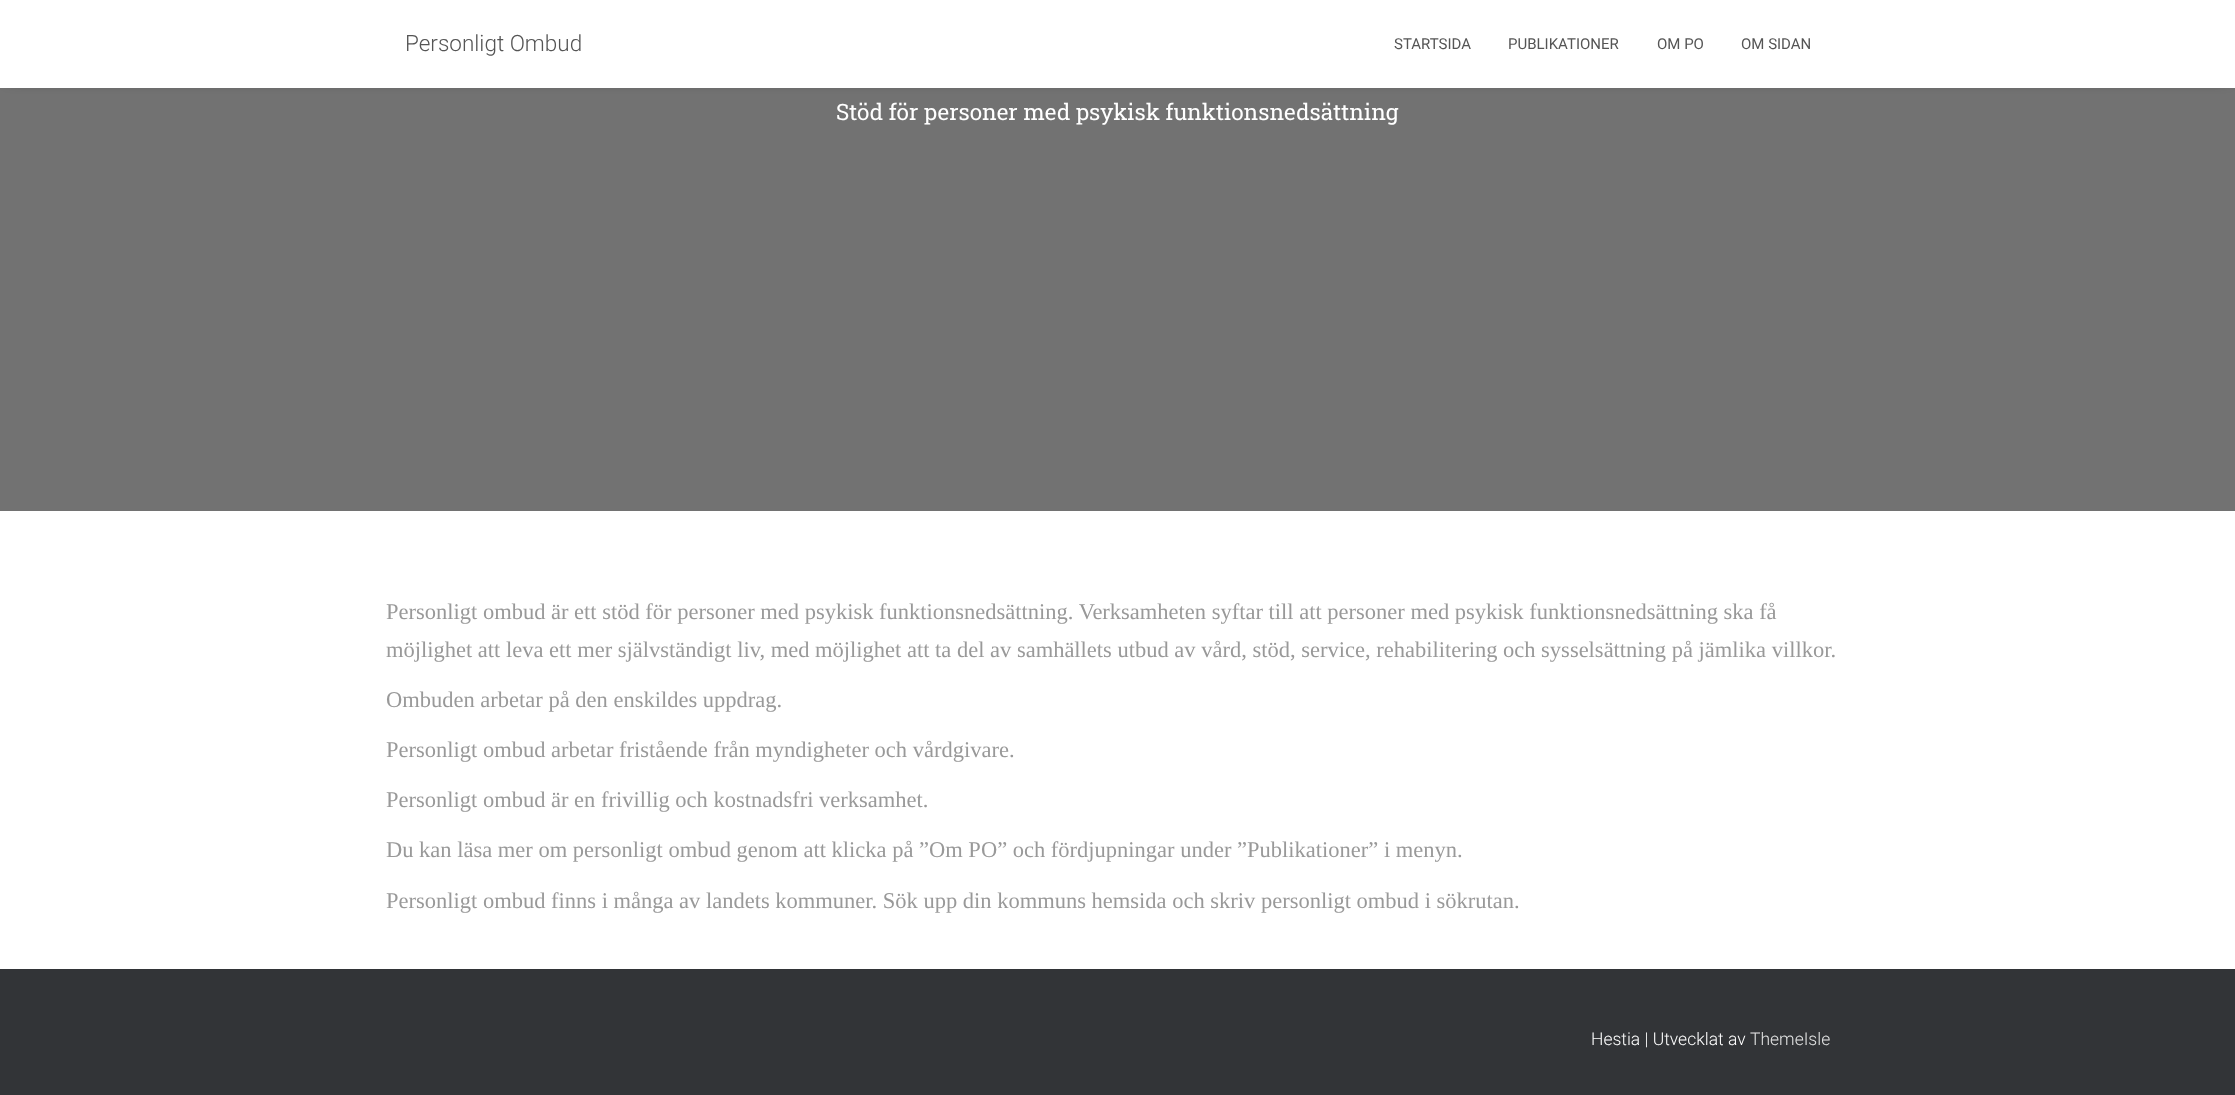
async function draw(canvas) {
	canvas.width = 2235;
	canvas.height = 1095;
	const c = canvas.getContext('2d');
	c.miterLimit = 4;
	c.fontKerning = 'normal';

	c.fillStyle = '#323437';
	c.fillRect(0, 0, 2235, 1095);
	c.fillStyle = '#727272';
	c.fillRect(0, 88, 2235, 423);
	c.fillStyle = '#0000006b';
	c.filter = 'blur(6px)';
	c.beginPath();
	c.rect(8, 9, 2220, 72);
	c.fill();
	c.filter = 'none';
	c.fillStyle = '#fff';
	c.fillRect(0, 0, 2235, 88);
	c.font = '300 22.5px Roboto';
	c.fillStyle = '#555';
	c.fillText('Personligt Ombud', 405, 51);
	c.font = '15px Roboto';
	for (const [text, x, y] of [
		['STARTSIDA', 1394, 49],
		['PUBLIKATIONER', 1508, 49],
		['OM PO', 1657, 49],
		['OM SIDAN', 1741, 49],
	]) {
		c.fillText(text, x, y);
	}
	c.font = '22.5px Roboto Slab';
	c.fillStyle = '#fff';
	c.fillText('Stöd för personer med psykisk funktionsnedsättning', 836, 120);
	c.fillRect(0, 511, 2235, 458);
	c.font = '22.5px Liberation Serif';
	c.fillStyle = '#999';
	for (const [text, x, y] of [
		['Personligt ombud är ett stöd för personer med psykisk funktionsnedsättning. Verksamheten syftar till att personer med psykisk funktionsnedsättning ska få', 386, 619],
		['möjlighet att leva ett mer självständigt liv, med möjlighet att ta del av samhällets utbud av vård, stöd, service, rehabilitering och sysselsättning på jämlika villkor.', 386, 657],
		['Ombuden arbetar på den enskildes uppdrag.', 386, 707],
		['Personligt ombud arbetar fristående från myndigheter och vårdgivare.', 386, 757],
		['Personligt ombud är en frivillig och kostnadsfri verksamhet.', 386, 807],
		['Du kan läsa mer om personligt ombud genom att klicka på ”Om PO” och fördjupningar under ”Publikationer” i menyn.', 386, 857],
		['Personligt ombud finns i många av landets kommuner. Sök upp din kommuns hemsida och skriv personligt ombud i sökrutan.', 386, 908],
	]) {
		c.fillText(text, x, y);
	}
	c.font = '300 17.5px Roboto';
	c.fillStyle = '#fff';
	c.fillText('Hestia | Utvecklat av', 1591, 1045);
	c.fillStyle = '#e2e3e3';
	c.fillText('ThemeIsle', 1750, 1045);
}

draw(document.querySelector('canvas'));
